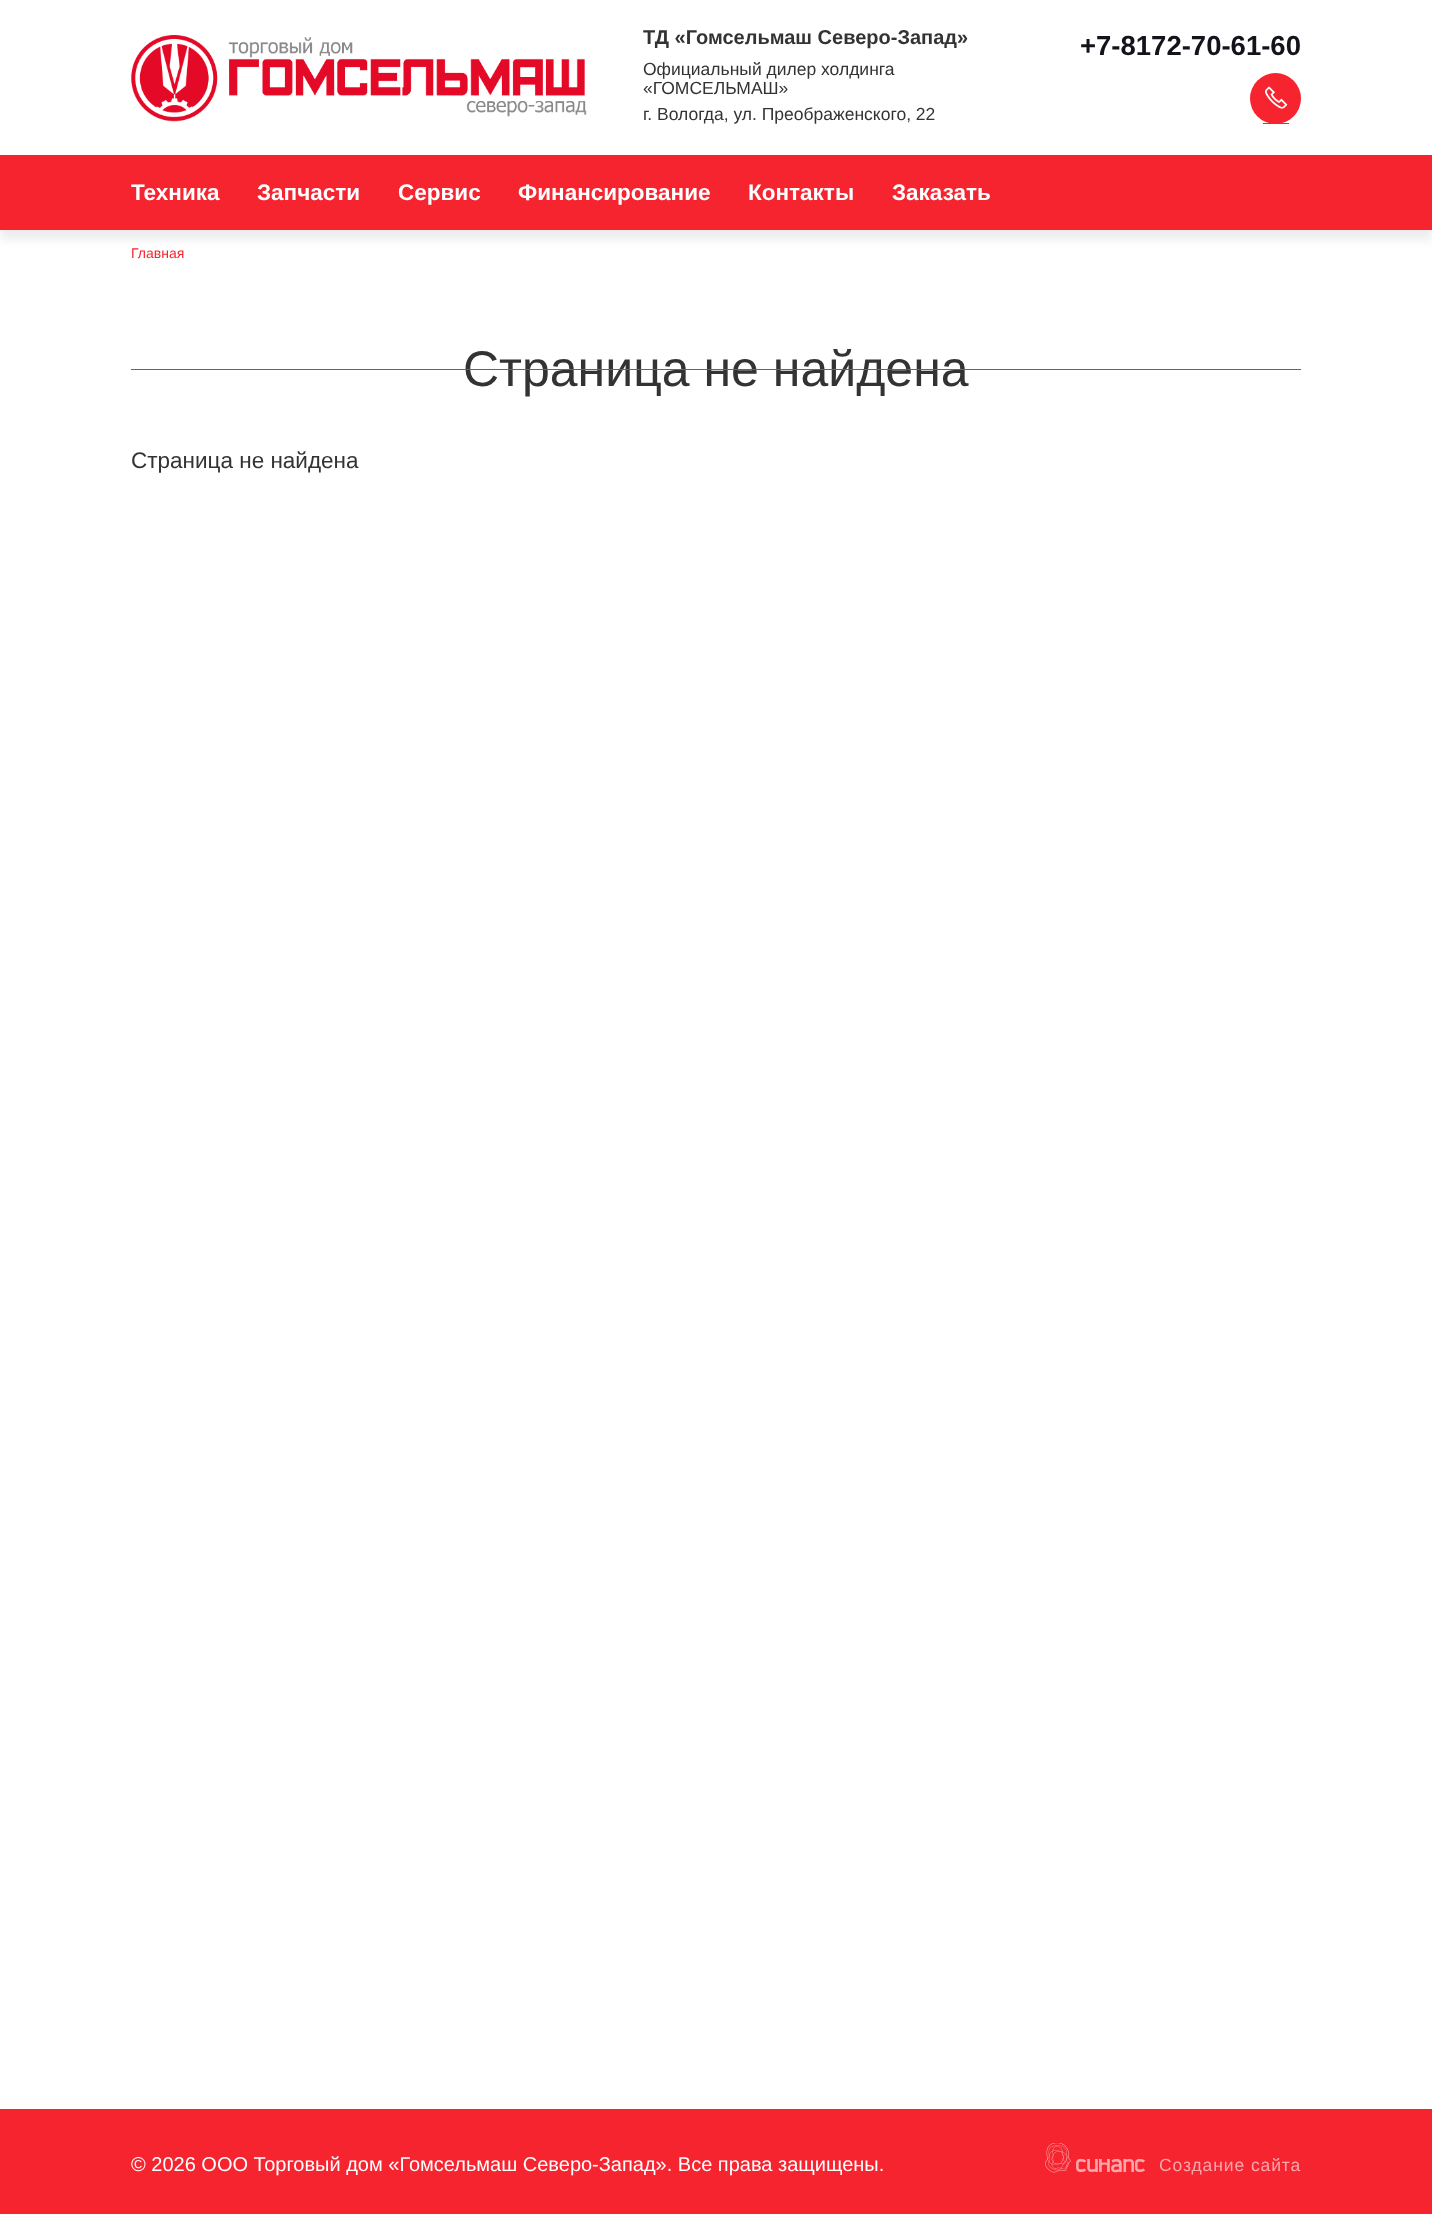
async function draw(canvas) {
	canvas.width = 1432;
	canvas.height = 2214;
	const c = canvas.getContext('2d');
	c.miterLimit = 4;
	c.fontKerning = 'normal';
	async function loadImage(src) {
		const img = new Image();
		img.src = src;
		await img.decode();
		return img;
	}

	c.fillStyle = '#fff';
	c.fillRect(0, 0, 1432, 2214);
	c.drawImage(await loadImage('img1.png'), 131, 35, 456, 87);
	c.font = 'bold 20px Liberation Sans';
	c.fillStyle = '#333';
	c.fillText('ТД «Гомсельмаш Северо-Запад»', 643, 44);
	c.font = '17.5px Liberation Sans';
	for (const [text, x, y] of [
		['Официальный дилер холдинга', 643, 75],
		['«ГОМСЕЛЬМАШ»', 643, 94],
		['г. Вологда, ул. Преображенского, 22', 643, 120],
	]) {
		c.fillText(text, x, y);
	}
	c.font = 'bold 27.5px Liberation Sans';
	c.fillStyle = '#13131b';
	c.fillText('+7-8172-70-61-60', 1080, 55);
	c.fillStyle = '#f6242f';
	c.beginPath();
	c.arc(1275.5, 98.5, 25.5, 0, 2 * Math.PI);
	c.fill();
	c.drawImage(await loadImage('img2.png'), 1265, 86, 23, 23);
	c.fillRect(1263, 123, 26, 1);
	c.fillStyle = '#00000012';
	c.filter = 'blur(5px)';
	c.beginPath();
	c.rect(0, 165, 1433, 75);
	c.fill();
	c.filter = 'none';
	c.fillStyle = '#f6242f';
	c.fillRect(0, 155, 1432, 75);
	c.font = 'bold 22.5px Liberation Sans';
	c.fillStyle = '#fff';
	for (const [text, x, y] of [
		['Техника', 131, 200],
		['Запчасти', 257, 200],
		['Сервис', 398, 200],
		['Финансирование', 518, 200],
		['Контакты', 748, 200],
		['Заказать', 892, 200],
	]) {
		c.fillText(text, x, y);
	}
	c.font = '14px Liberation Sans';
	c.fillStyle = '#f6242f';
	c.fillText('Главная', 131, 258);
	c.font = '50px Liberation Sans';
	c.fillStyle = '#333';
	c.fillText('Страница не найдена', 463, 386);
	c.fillStyle = '#f6242f';
	c.fillRect(131, 369, 1170, 1);
	c.font = '22.5px Liberation Sans';
	c.fillStyle = '#333';
	c.fillText('Страница не найдена', 131, 468);
	c.fillStyle = '#f6242f';
	c.fillRect(0, 2109, 1432, 105);
	c.font = '20px Liberation Sans';
	c.fillStyle = '#fff';
	c.fillText('© 2026 ООО Торговый дом «Гомсельмаш Северо-Запад». Все права защищены.', 131, 2171);
	c.drawImage(await loadImage('img3.png'), 1045, 2143, 100, 30);
	c.letterSpacing = '0.9px';
	c.font = '17.5px Liberation Sans';
	c.fillStyle = '#fba7ac';
	c.fillText('Создание сайта', 1159, 2171);
}

draw(document.querySelector('canvas'));
